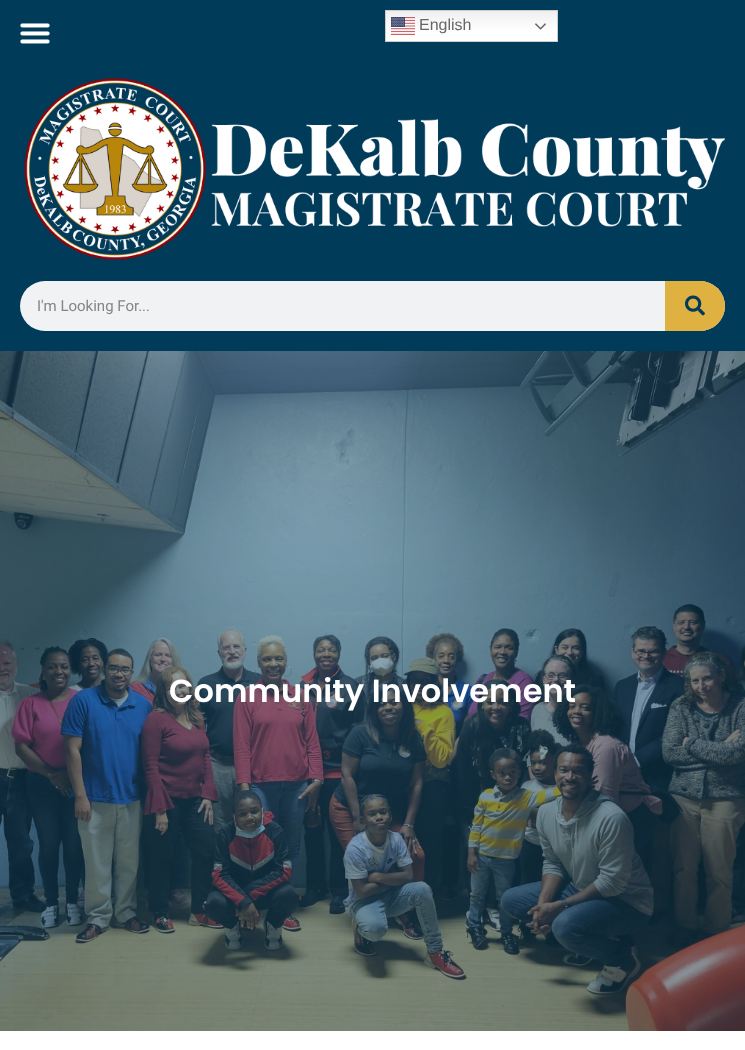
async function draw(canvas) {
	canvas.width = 745;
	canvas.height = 1050;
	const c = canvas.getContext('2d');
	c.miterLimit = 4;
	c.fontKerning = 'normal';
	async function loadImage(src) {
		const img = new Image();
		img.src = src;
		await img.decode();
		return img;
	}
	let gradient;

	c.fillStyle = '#fff';
	c.fillRect(0, 0, 745, 1050);
	c.fillStyle = '#003b59';
	c.fillRect(0, 0, 745, 351);
	c.drawImage(await loadImage('img1.png'), 20, 23, 30, 21);
	gradient = c.createLinearGradient(472, 10, 472, 42);
	gradient.addColorStop(0, '#efefef');
	gradient.addColorStop(0.7, '#fff');
	c.fillStyle = gradient;
	c.fillRect(386, 11, 171, 30);
	c.strokeStyle = '#ccc';
	c.strokeRect(385.5, 10.5, 172, 31);
	c.drawImage(await loadImage('img2.png'), 391, 17, 24, 18);
	c.font = '16px Liberation Sans';
	c.fillStyle = '#666';
	c.fillText('English', 419, 30);
	c.drawImage(await loadImage('img3.png'), 535, 23, 11, 7);
	c.drawImage(await loadImage('img4.png'), 24, 78, 701, 182);
	c.fillStyle = '#f1f2f3';
	c.beginPath();
	c.roundRect(20, 281, 705, 50, 25);
	c.fill();
	c.font = '15px Roboto';
	c.fillStyle = '#848585';
	c.fillText('I\'m Looking For...', 37, 311);
	c.fillStyle = '#deb141';
	c.beginPath();
	c.roundRect(665, 281, 60, 50, [0, 25, 25, 0]);
	c.fill();
	c.drawImage(await loadImage('img5.png'), 685, 295, 20, 21);
	c.drawImage(await loadImage('img6.png'), 0, 351, 745, 680);
	c.font = '600 32px Poppins';
	c.fillStyle = '#fff';
	c.fillText('Community Involvement', 169, 702);
}

draw(document.querySelector('canvas'));
